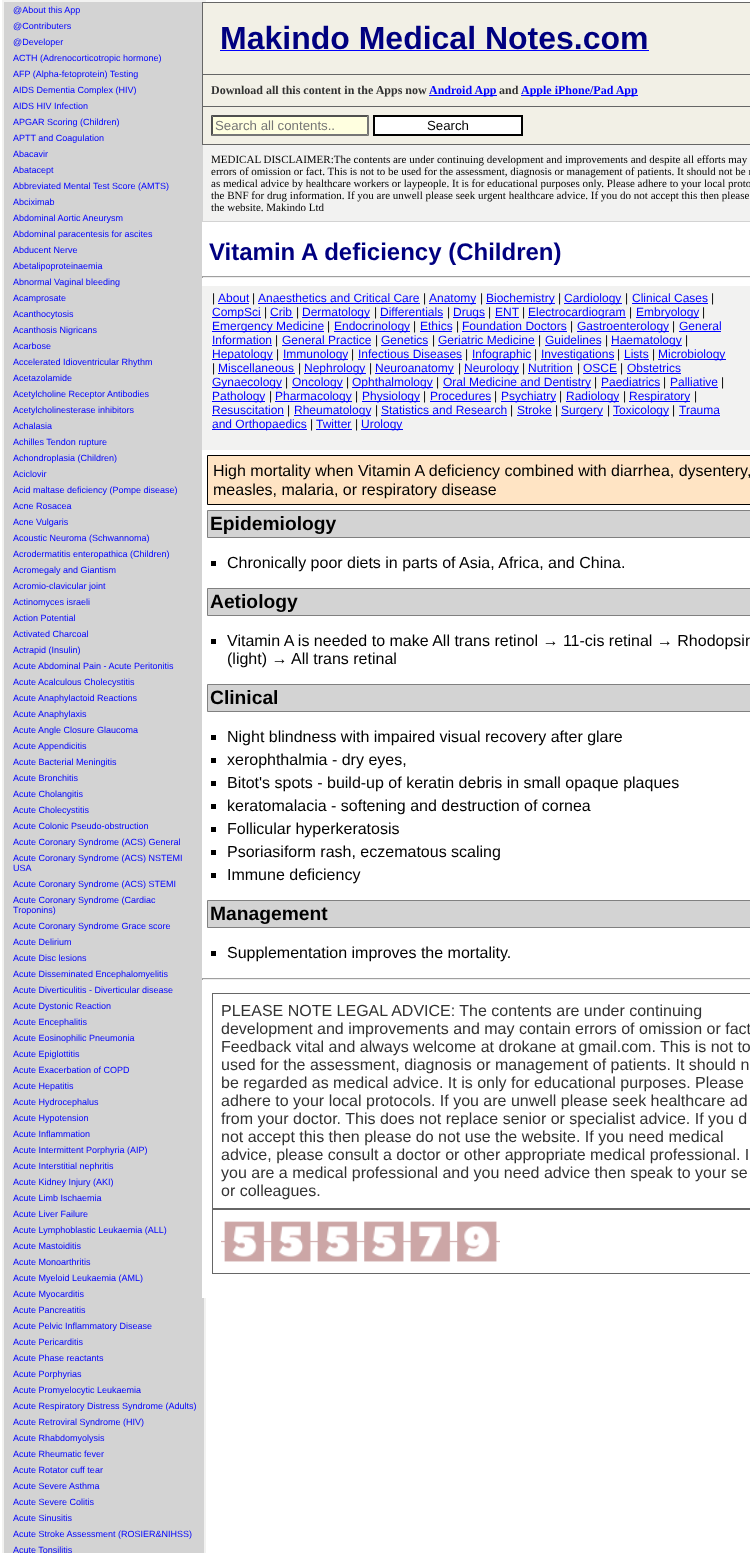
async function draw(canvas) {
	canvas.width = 750;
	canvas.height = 1553;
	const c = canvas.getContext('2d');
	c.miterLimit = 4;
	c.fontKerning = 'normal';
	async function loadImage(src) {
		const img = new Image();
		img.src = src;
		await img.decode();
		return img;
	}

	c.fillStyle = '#fff';
	c.fillRect(0, 0, 750, 1553);
	c.fillStyle = '#f2f2f1';
	c.fillRect(2, 0, 204, 1553);
	c.fillStyle = '#d3d3d3';
	c.fillRect(4, 2, 198, 1284);
	c.font = '9px Liberation Sans';
	c.fillStyle = '#00f';
	for (const [text, x, y] of [
		['@About this App', 13, 13],
		['@Contributers', 13, 29],
		['@Developer', 13, 45],
		['ACTH (Adrenocorticotropic hormone)', 13, 61],
		['AFP (Alpha-fetoprotein) Testing', 13, 77],
		['AIDS Dementia Complex (HIV)', 13, 93],
		['AIDS HIV Infection', 13, 109],
		['APGAR Scoring (Children)', 13, 125],
		['APTT and Coagulation', 13, 141],
		['Abacavir', 13, 157],
		['Abatacept', 13, 173],
		['Abbreviated Mental Test Score (AMTS)', 13, 189],
		['Abciximab', 13, 205],
		['Abdominal Aortic Aneurysm', 13, 221],
		['Abdominal paracentesis for ascites', 13, 237],
		['Abducent Nerve', 13, 253],
		['Abetalipoproteinaemia', 13, 269],
		['Abnormal Vaginal bleeding', 13, 285],
		['Acamprosate', 13, 301],
		['Acanthocytosis', 13, 317],
		['Acanthosis Nigricans', 13, 333],
		['Acarbose', 13, 349],
		['Accelerated Idioventricular Rhythm', 13, 365],
		['Acetazolamide', 13, 381],
		['Acetylcholine Receptor Antibodies', 13, 397],
		['Acetylcholinesterase inhibitors', 13, 413],
		['Achalasia', 13, 429],
		['Achilles Tendon rupture', 13, 445],
		['Achondroplasia (Children)', 13, 461],
		['Aciclovir', 13, 477],
		['Acid maltase deficiency (Pompe disease)', 13, 493],
		['Acne Rosacea', 13, 509],
		['Acne Vulgaris', 13, 525],
		['Acoustic Neuroma (Schwannoma)', 13, 541],
		['Acrodermatitis enteropathica (Children)', 13, 557],
		['Acromegaly and Giantism', 13, 573],
		['Acromio-clavicular joint', 13, 589],
		['Actinomyces israeli', 13, 605],
		['Action Potential', 13, 621],
		['Activated Charcoal', 13, 637],
		['Actrapid (Insulin)', 13, 653],
		['Acute Abdominal Pain - Acute Peritonitis', 13, 669],
		['Acute Acalculous Cholecystitis', 13, 685],
		['Acute Anaphylactoid Reactions', 13, 701],
		['Acute Anaphylaxis', 13, 717],
		['Acute Angle Closure Glaucoma', 13, 733],
		['Acute Appendicitis', 13, 749],
		['Acute Bacterial Meningitis', 13, 765],
		['Acute Bronchitis', 13, 781],
		['Acute Cholangitis', 13, 797],
		['Acute Cholecystitis', 13, 813],
		['Acute Colonic Pseudo-obstruction', 13, 829],
		['Acute Coronary Syndrome (ACS) General', 13, 845],
		['Acute Coronary Syndrome (ACS) NSTEMI', 13, 861],
		['USA', 13, 871],
		['Acute Coronary Syndrome (ACS) STEMI', 13, 887],
		['Acute Coronary Syndrome (Cardiac', 13, 903],
		['Troponins)', 13, 913],
		['Acute Coronary Syndrome Grace score', 13, 929],
		['Acute Delirium', 13, 945],
		['Acute Disc lesions', 13, 961],
		['Acute Disseminated Encephalomyelitis', 13, 977],
		['Acute Diverticulitis - Diverticular disease', 13, 993],
		['Acute Dystonic Reaction', 13, 1009],
		['Acute Encephalitis', 13, 1025],
		['Acute Eosinophilic Pneumonia', 13, 1041],
		['Acute Epiglottitis', 13, 1057],
		['Acute Exacerbation of COPD', 13, 1073],
		['Acute Hepatitis', 13, 1089],
		['Acute Hydrocephalus', 13, 1105],
		['Acute Hypotension', 13, 1121],
		['Acute Inflammation', 13, 1137],
		['Acute Intermittent Porphyria (AIP)', 13, 1153],
		['Acute Interstitial nephritis', 13, 1169],
		['Acute Kidney Injury (AKI)', 13, 1185],
		['Acute Limb Ischaemia', 13, 1201],
		['Acute Liver Failure', 13, 1217],
		['Acute Lymphoblastic Leukaemia (ALL)', 13, 1233],
		['Acute Mastoiditis', 13, 1249],
		['Acute Monoarthritis', 13, 1265],
		['Acute Myeloid Leukaemia (AML)', 13, 1281],
	]) {
		c.fillText(text, x, y);
	}
	c.fillStyle = '#d3d3d3';
	c.fillRect(4, 1286, 200, 267);
	c.fillStyle = '#00f';
	for (const [text, x, y] of [
		['Acute Myocarditis', 13, 1297],
		['Acute Pancreatitis', 13, 1313],
		['Acute Pelvic Inflammatory Disease', 13, 1329],
		['Acute Pericarditis', 13, 1345],
		['Acute Phase reactants', 13, 1361],
		['Acute Porphyrias', 13, 1377],
		['Acute Promyelocytic Leukaemia', 13, 1393],
		['Acute Respiratory Distress Syndrome (Adults)', 13, 1409],
		['Acute Retroviral Syndrome (HIV)', 13, 1425],
		['Acute Rhabdomyolysis', 13, 1441],
		['Acute Rheumatic fever', 13, 1457],
		['Acute Rotator cuff tear', 13, 1473],
		['Acute Severe Asthma', 13, 1489],
		['Acute Severe Colitis', 13, 1505],
		['Acute Sinusitis', 13, 1521],
		['Acute Stroke Assessment (ROSIER&NIHSS)', 13, 1537],
		['Acute Tonsilitis', 13, 1553],
	]) {
		c.fillText(text, x, y);
	}
	for (const [x, y, w, h, color] of [
		[202, 222, 4, 1076, '#fff'],
		[203, 3, 547, 71, '#f2f0e6'],
		[202, 2, 548, 1, '#666'],
		[202, 74, 548, 1, '#666'],
		[202, 106, 548, 1, '#666'],
		[202, 221, 548, 1, '#d3d3d3'],
		[202, 144, 1, 78, '#d3d3d3'],
		[202, 144, 548, 1, '#666'],
		[202, 106, 1, 39, '#666'],
		[202, 74, 1, 33, '#666'],
		[202, 2, 1, 73, '#666'],
	]) {
		c.fillStyle = color;
		c.fillRect(x, y, w, h);
	}
	c.font = 'bold 32px Liberation Sans';
	c.fillStyle = '#000080';
	c.fillText('Makindo Medical Notes.com', 220, 49);
	c.fillStyle = '#00f';
	c.fillRect(220, 50, 429, 1);
	c.fillStyle = '#f2f0e6';
	c.fillRect(203, 75, 547, 31);
	c.font = 'bold 12px Liberation Serif';
	c.fillStyle = '#333';
	c.fillText('Download all this content in the Apps now', 211, 94);
	c.fillStyle = '#00f';
	c.fillRect(429, 95, 68, 1);
	c.fillText('Android App', 429, 94);
	c.fillStyle = '#333';
	c.fillText('and', 499, 94);
	c.fillStyle = '#00f';
	c.fillRect(521, 95, 117, 1);
	c.fillText('Apple iPhone/Pad App', 521, 94);
	c.fillStyle = '#f2f0e6';
	c.fillRect(203, 107, 547, 37);
	c.fillStyle = '#ffffe0';
	c.fillRect(211, 115, 158, 21);
	c.fillStyle = '#4f4f4f';
	c.beginPath();
	c.moveTo(211, 115);
	c.lineTo(369, 115);
	c.lineTo(367, 117);
	c.lineTo(213, 117);
	c.closePath();
	c.fill();
	c.fillStyle = '#767676';
	c.beginPath();
	c.moveTo(369, 115);
	c.lineTo(369, 136);
	c.lineTo(367, 134);
	c.lineTo(367, 117);
	c.closePath();
	c.fill();
	c.beginPath();
	c.moveTo(369, 136);
	c.lineTo(211, 136);
	c.lineTo(213, 134);
	c.lineTo(367, 134);
	c.closePath();
	c.fill();
	c.fillStyle = '#4f4f4f';
	c.beginPath();
	c.moveTo(211, 136);
	c.lineTo(211, 115);
	c.lineTo(213, 117);
	c.lineTo(213, 134);
	c.closePath();
	c.fill();
	c.font = '13.25px Liberation Sans';
	c.fillStyle = '#757575';
	c.fillText('Search all contents..', 215, 130);
	c.fillStyle = '#fff';
	c.beginPath();
	c.rect(374, 116, 148, 19);
	c.fill();
	c.strokeStyle = '#000';
	c.lineWidth = 2;
	c.stroke();
	c.fillStyle = '#000';
	c.fillText('Search', 427, 130);
	c.fillStyle = '#f2f2f1';
	c.fillRect(206, 145, 544, 76);
	c.font = '11px Liberation Serif';
	c.fillStyle = '#000';
	for (const [text, x, y] of [
		['MEDICAL DISCLAIMER:The contents are under continuing development and improvements and despite all efforts may', 211, 163],
		['errors of omission or fact. This is not to be used for the assessment, diagnosis or management of patients. It should not be r', 211, 175],
		['as medical advice by healthcare workers or laypeople. It is for educational purposes only. Please adhere to your local proto', 211, 187],
		['the BNF for drug information. If you are unwell please seek urgent healthcare advice. If you do not accept this then please', 211, 199],
		['the website. Makindo Ltd', 211, 211],
	]) {
		c.fillText(text, x, y);
	}
	c.font = 'bold 24px Liberation Sans';
	c.fillStyle = '#000080';
	c.fillText('Vitamin A deficiency (Children)', 209, 260);
	for (const [x, y, w, h, color] of [
		[202, 276, 548, 1, '#9f9f9f'],
		[202, 277, 548, 1, '#eee'],
		[202, 276, 1, 2, '#9f9f9f'],
		[202, 286, 548, 164, '#f2f2f1'],
	]) {
		c.fillStyle = color;
		c.fillRect(x, y, w, h);
	}
	c.font = '12px Liberation Sans';
	c.fillStyle = '#000';
	c.fillText('|', 212, 302);
	c.fillStyle = '#00f';
	c.fillText('About', 218, 302);
	c.fillRect(218, 303, 31, 1);
	c.fillStyle = '#000';
	c.fillText('|', 252, 302);
	c.fillStyle = '#00f';
	c.fillText('Anaesthetics and Critical Care', 258, 302);
	c.fillRect(258, 303, 162, 1);
	c.fillStyle = '#000';
	c.fillText('|', 423, 302);
	c.fillStyle = '#00f';
	c.fillRect(429, 303, 47, 1);
	c.fillText('Anatomy', 429, 302);
	c.fillStyle = '#000';
	c.fillText('|', 480, 302);
	c.fillStyle = '#00f';
	c.fillRect(486, 303, 69, 1);
	c.fillText('Biochemistry', 486, 302);
	c.fillStyle = '#000';
	c.fillText('|', 558, 302);
	c.fillStyle = '#00f';
	c.fillRect(564, 303, 58, 1);
	c.fillText('Cardiology', 564, 302);
	c.fillStyle = '#000';
	c.fillText('|', 625, 302);
	c.fillStyle = '#00f';
	c.fillText('Clinical Cases', 632, 302);
	c.fillRect(632, 303, 76, 1);
	c.fillStyle = '#000';
	c.fillText('|', 711, 302);
	c.fillStyle = '#00f';
	c.fillRect(212, 317, 49, 1);
	c.fillText('CompSci', 212, 316);
	c.fillStyle = '#000';
	c.fillText('|', 264, 316);
	c.fillStyle = '#00f';
	c.fillText('Crib', 270, 316);
	c.fillRect(270, 317, 23, 1);
	c.fillStyle = '#000';
	c.fillText('|', 296, 316);
	c.fillStyle = '#00f';
	c.fillRect(302, 317, 68, 1);
	c.fillText('Dermatology', 302, 316);
	c.fillStyle = '#000';
	c.fillText('|', 374, 316);
	c.fillStyle = '#00f';
	c.fillText('Differentials', 380, 316);
	c.fillRect(380, 317, 63, 1);
	c.fillStyle = '#000';
	c.fillText('|', 447, 316);
	c.fillStyle = '#00f';
	c.fillRect(453, 317, 32, 1);
	c.fillText('Drugs', 453, 316);
	c.fillStyle = '#000';
	c.fillText('|', 488, 316);
	c.fillStyle = '#00f';
	c.fillText('ENT', 495, 316);
	c.fillRect(495, 317, 24, 1);
	c.fillStyle = '#000';
	c.fillText('|', 522, 316);
	c.fillStyle = '#00f';
	c.fillRect(528, 317, 98, 1);
	c.fillText('Electrocardiogram', 528, 316);
	c.fillStyle = '#000';
	c.fillText('|', 629, 316);
	c.fillStyle = '#00f';
	c.fillRect(636, 317, 63, 1);
	c.fillText('Embryology', 636, 316);
	c.fillStyle = '#000';
	c.fillText('|', 702, 316);
	c.fillStyle = '#00f';
	c.fillRect(212, 331, 112, 1);
	c.fillText('Emergency Medicine', 212, 330);
	c.fillStyle = '#000';
	c.fillText('|', 327, 330);
	c.fillStyle = '#00f';
	c.fillRect(334, 331, 76, 1);
	c.fillText('Endocrinology', 334, 330);
	c.fillStyle = '#000';
	c.fillText('|', 413, 330);
	c.fillStyle = '#00f';
	c.fillText('Ethics', 420, 330);
	c.fillRect(420, 331, 32, 1);
	c.fillStyle = '#000';
	c.fillText('|', 456, 330);
	c.fillStyle = '#00f';
	c.fillText('Foundation Doctors', 462, 330);
	c.fillRect(462, 331, 105, 1);
	c.fillStyle = '#000';
	c.fillText('|', 570, 330);
	c.fillStyle = '#00f';
	c.fillRect(577, 331, 92, 1);
	c.fillText('Gastroenterology', 577, 330);
	c.fillStyle = '#000';
	c.fillText('|', 672, 330);
	c.fillStyle = '#00f';
	c.fillText('General', 679, 330);
	c.fillRect(679, 331, 42, 1);
	c.fillText('Information', 212, 344);
	c.fillRect(212, 345, 60, 1);
	c.fillStyle = '#000';
	c.fillText('|', 275, 344);
	c.fillStyle = '#00f';
	c.fillText('General Practice', 282, 344);
	c.fillRect(282, 345, 89, 1);
	c.fillStyle = '#000';
	c.fillText('|', 375, 344);
	c.fillStyle = '#00f';
	c.fillText('Genetics', 381, 344);
	c.fillRect(381, 345, 47, 1);
	c.fillStyle = '#000';
	c.fillText('|', 432, 344);
	c.fillStyle = '#00f';
	c.fillText('Geriatric Medicine', 438, 344);
	c.fillRect(438, 345, 97, 1);
	c.fillStyle = '#000';
	c.fillText('|', 538, 344);
	c.fillStyle = '#00f';
	c.fillText('Guidelines', 545, 344);
	c.fillRect(545, 345, 56, 1);
	c.fillStyle = '#000';
	c.fillText('|', 605, 344);
	c.fillStyle = '#00f';
	c.fillRect(611, 345, 71, 1);
	c.fillText('Haematology', 611, 344);
	c.fillStyle = '#000';
	c.fillText('|', 685, 344);
	c.fillStyle = '#00f';
	c.fillRect(212, 359, 61, 1);
	c.fillText('Hepatology', 212, 358);
	c.fillStyle = '#000';
	c.fillText('|', 276, 358);
	c.fillStyle = '#00f';
	c.fillRect(283, 359, 65, 1);
	c.fillText('Immunology', 283, 358);
	c.fillStyle = '#000';
	c.fillText('|', 351, 358);
	c.fillStyle = '#00f';
	c.fillText('Infectious Diseases', 358, 358);
	c.fillRect(358, 359, 104, 1);
	c.fillStyle = '#000';
	c.fillText('|', 465, 358);
	c.fillStyle = '#00f';
	c.fillRect(472, 359, 59, 1);
	c.fillText('Infographic', 472, 358);
	c.fillStyle = '#000';
	c.fillText('|', 534, 358);
	c.fillStyle = '#00f';
	c.fillRect(541, 359, 73, 1);
	c.fillText('Investigations', 541, 358);
	c.fillStyle = '#000';
	c.fillText('|', 617, 358);
	c.fillStyle = '#00f';
	c.fillText('Lists', 624, 358);
	c.fillRect(624, 359, 25, 1);
	c.fillStyle = '#000';
	c.fillText('|', 652, 358);
	c.fillStyle = '#00f';
	c.fillRect(658, 359, 68, 1);
	c.fillText('Microbiology', 658, 358);
	c.fillStyle = '#000';
	c.fillText('|', 212, 372);
	c.fillStyle = '#00f';
	c.fillText('Miscellaneous', 218, 372);
	c.fillRect(218, 373, 77, 1);
	c.fillStyle = '#000';
	c.fillText('|', 298, 372);
	c.fillStyle = '#00f';
	c.fillRect(304, 373, 62, 1);
	c.fillText('Nephrology', 304, 372);
	c.fillStyle = '#000';
	c.fillText('|', 369, 372);
	c.fillStyle = '#00f';
	c.fillRect(375, 373, 79, 1);
	c.fillText('Neuroanatomy', 375, 372);
	c.fillStyle = '#000';
	c.fillText('|', 458, 372);
	c.fillStyle = '#00f';
	c.fillRect(464, 373, 55, 1);
	c.fillText('Neurology', 464, 372);
	c.fillStyle = '#000';
	c.fillText('|', 522, 372);
	c.fillStyle = '#00f';
	c.fillText('Nutrition', 528, 372);
	c.fillRect(528, 373, 45, 1);
	c.fillStyle = '#000';
	c.fillText('|', 577, 372);
	c.fillStyle = '#00f';
	c.fillText('OSCE', 583, 372);
	c.fillRect(583, 373, 34, 1);
	c.fillStyle = '#000';
	c.fillText('|', 620, 372);
	c.fillStyle = '#00f';
	c.fillText('Obstetrics', 627, 372);
	c.fillRect(627, 373, 54, 1);
	c.fillRect(212, 387, 70, 1);
	c.fillText('Gynaecology', 212, 386);
	c.fillStyle = '#000';
	c.fillText('|', 285, 386);
	c.fillStyle = '#00f';
	c.fillRect(292, 387, 51, 1);
	c.fillText('Oncology', 292, 386);
	c.fillStyle = '#000';
	c.fillText('|', 346, 386);
	c.fillStyle = '#00f';
	c.fillRect(352, 387, 81, 1);
	c.fillText('Ophthalmology', 352, 386);
	c.fillStyle = '#000';
	c.fillText('|', 436, 386);
	c.fillStyle = '#00f';
	c.fillRect(443, 387, 148, 1);
	c.fillText('Oral Medicine and Dentistry', 443, 386);
	c.fillStyle = '#000';
	c.fillText('|', 594, 386);
	c.fillStyle = '#00f';
	c.fillText('Paediatrics', 601, 386);
	c.fillRect(601, 387, 59, 1);
	c.fillStyle = '#000';
	c.fillText('|', 663, 386);
	c.fillStyle = '#00f';
	c.fillText('Palliative', 670, 386);
	c.fillRect(670, 387, 48, 1);
	c.fillStyle = '#000';
	c.fillText('|', 721, 386);
	c.fillStyle = '#00f';
	c.fillRect(212, 401, 53, 1);
	c.fillText('Pathology', 212, 400);
	c.fillStyle = '#000';
	c.fillText('|', 269, 400);
	c.fillStyle = '#00f';
	c.fillRect(275, 401, 77, 1);
	c.fillText('Pharmacology', 275, 400);
	c.fillStyle = '#000';
	c.fillText('|', 355, 400);
	c.fillStyle = '#00f';
	c.fillRect(362, 401, 58, 1);
	c.fillText('Physiology', 362, 400);
	c.fillStyle = '#000';
	c.fillText('|', 423, 400);
	c.fillStyle = '#00f';
	c.fillText('Procedures', 430, 400);
	c.fillRect(430, 401, 61, 1);
	c.fillStyle = '#000';
	c.fillText('|', 494, 400);
	c.fillStyle = '#00f';
	c.fillRect(501, 401, 55, 1);
	c.fillText('Psychiatry', 501, 400);
	c.fillStyle = '#000';
	c.fillText('|', 559, 400);
	c.fillStyle = '#00f';
	c.fillRect(566, 401, 53, 1);
	c.fillText('Radiology', 566, 400);
	c.fillStyle = '#000';
	c.fillText('|', 623, 400);
	c.fillStyle = '#00f';
	c.fillRect(629, 401, 61, 1);
	c.fillText('Respiratory', 629, 400);
	c.fillStyle = '#000';
	c.fillText('|', 694, 400);
	c.fillStyle = '#00f';
	c.fillText('Resuscitation', 212, 414);
	c.fillRect(212, 415, 72, 1);
	c.fillStyle = '#000';
	c.fillText('|', 287, 414);
	c.fillStyle = '#00f';
	c.fillRect(294, 415, 77, 1);
	c.fillText('Rheumatology', 294, 414);
	c.fillStyle = '#000';
	c.fillText('|', 375, 414);
	c.fillStyle = '#00f';
	c.fillText('Statistics and Research', 381, 414);
	c.fillRect(381, 415, 126, 1);
	c.fillStyle = '#000';
	c.fillText('|', 510, 414);
	c.fillStyle = '#00f';
	c.fillText('Stroke', 517, 414);
	c.fillRect(517, 415, 35, 1);
	c.fillStyle = '#000';
	c.fillText('|', 555, 414);
	c.fillStyle = '#00f';
	c.fillRect(561, 415, 42, 1);
	c.fillText('Surgery', 561, 414);
	c.fillStyle = '#000';
	c.fillText('|', 607, 414);
	c.fillStyle = '#00f';
	c.fillRect(613, 415, 56, 1);
	c.fillText('Toxicology', 613, 414);
	c.fillStyle = '#000';
	c.fillText('|', 672, 414);
	c.fillStyle = '#00f';
	c.fillText('Trauma', 679, 414);
	c.fillRect(679, 415, 41, 1);
	c.fillRect(212, 429, 95, 1);
	c.fillText('and Orthopaedics', 212, 428);
	c.fillStyle = '#000';
	c.fillText('|', 310, 428);
	c.fillStyle = '#00f';
	c.fillText('Twitter', 316, 428);
	c.fillRect(316, 429, 36, 1);
	c.fillStyle = '#000';
	c.fillText('|', 355, 428);
	c.fillStyle = '#00f';
	c.fillRect(361, 429, 42, 1);
	c.fillText('Urology', 361, 428);
	c.fillStyle = '#ffe4c4';
	c.beginPath();
	c.rect(207.5, 455.5, 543, 49);
	c.fill();
	c.lineWidth = 1;
	c.stroke();
	c.font = '16px Liberation Sans';
	c.fillStyle = '#000';
	c.fillText('High mortality when Vitamin A deficiency combined with diarrhea, dysentery,', 213, 476);
	c.fillText('measles, malaria, or respiratory disease', 213, 495);
	c.fillStyle = '#d3d3d3';
	c.beginPath();
	c.rect(207.5, 510.5, 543, 27);
	c.fill();
	c.strokeStyle = '#808080';
	c.stroke();
	c.font = 'bold 19.25px Liberation Sans';
	c.fillStyle = '#000';
	c.fillText('Epidemiology', 210, 530);
	c.fillRect(211, 561, 5, 5);
	c.font = '16px Liberation Sans';
	c.fillText('Chronically poor diets in parts of Asia, Africa, and China.', 227, 568);
	c.fillStyle = '#d3d3d3';
	c.beginPath();
	c.rect(207.5, 588.5, 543, 27);
	c.fill();
	c.stroke();
	c.font = 'bold 19.25px Liberation Sans';
	c.fillStyle = '#000';
	c.fillText('Aetiology', 210, 608);
	c.fillRect(211, 639, 5, 5);
	c.font = '16px Liberation Sans';
	c.fillText('Vitamin A is needed to make All trans retinol → 11-cis retinal → Rhodopsin', 227, 646);
	c.fillText('(light) → All trans retinal', 227, 664);
	c.fillStyle = '#d3d3d3';
	c.beginPath();
	c.rect(207.5, 684.5, 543, 27);
	c.fill();
	c.stroke();
	c.font = 'bold 19.25px Liberation Sans';
	c.fillStyle = '#000';
	c.fillText('Clinical', 210, 704);
	c.fillRect(211, 735, 5, 5);
	c.font = '16px Liberation Sans';
	c.fillText('Night blindness with impaired visual recovery after glare', 227, 742);
	c.fillRect(211, 758, 5, 5);
	c.fillText('xerophthalmia - dry eyes,', 227, 765);
	c.fillRect(211, 781, 5, 5);
	c.fillText('Bitot\'s spots - build-up of keratin debris in small opaque plaques', 227, 788);
	c.fillRect(211, 804, 5, 5);
	c.fillText('keratomalacia - softening and destruction of cornea', 227, 811);
	c.fillRect(211, 827, 5, 5);
	c.fillText('Follicular hyperkeratosis', 227, 834);
	c.fillRect(211, 850, 5, 5);
	c.fillText('Psoriasiform rash, eczematous scaling', 227, 857);
	c.fillRect(211, 873, 5, 5);
	c.fillText('Immune deficiency', 227, 880);
	c.fillStyle = '#d3d3d3';
	c.beginPath();
	c.rect(207.5, 900.5, 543, 27);
	c.fill();
	c.stroke();
	c.font = 'bold 19.25px Liberation Sans';
	c.fillStyle = '#000';
	c.fillText('Management', 210, 920);
	c.fillRect(211, 951, 5, 5);
	c.font = '16px Liberation Sans';
	c.fillText('Supplementation improves the mortality.', 227, 958);
	for (const [x, y, w, h, color] of [
		[202, 978, 548, 1, '#9f9f9f'],
		[202, 979, 548, 1, '#eee'],
		[202, 978, 1, 2, '#9f9f9f'],
		[212, 993, 538, 1, '#666'],
		[212, 1208, 538, 2, '#666'],
		[212, 993, 1, 216, '#666'],
	]) {
		c.fillStyle = color;
		c.fillRect(x, y, w, h);
	}
	c.fillStyle = '#333';
	for (const [text, x, y] of [
		['PLEASE NOTE LEGAL ADVICE: The contents are under continuing', 221, 1016],
		['development and improvements and may contain errors of omission or fact', 221, 1034],
		['Feedback vital and always welcome at drokane at gmail.com. This is not to', 221, 1052],
		['used for the assessment, diagnosis or management of patients. It should n', 221, 1070],
		['be regarded as medical advice. It is only for educational purposes. Please', 221, 1088],
		['adhere to your local protocols. If you are unwell please seek healthcare ad', 221, 1106],
		['from your doctor. This does not replace senior or specialist advice. If you d', 221, 1124],
		['not accept this then please do not use the website. If you need medical', 221, 1142],
		['advice, please consult a doctor or other appropriate medical professional. I', 221, 1160],
		['you are a medical professional and you need advice then speak to your se', 221, 1178],
		['or colleagues.', 221, 1196],
	]) {
		c.fillText(text, x, y);
	}
	c.fillStyle = '#666';
	c.fillRect(212, 1273, 538, 1);
	c.fillRect(212, 1209, 1, 65);
	c.drawImage(await loadImage('img1.png'), 221, 1221, 279, 41);
}

draw(document.querySelector('canvas'));
